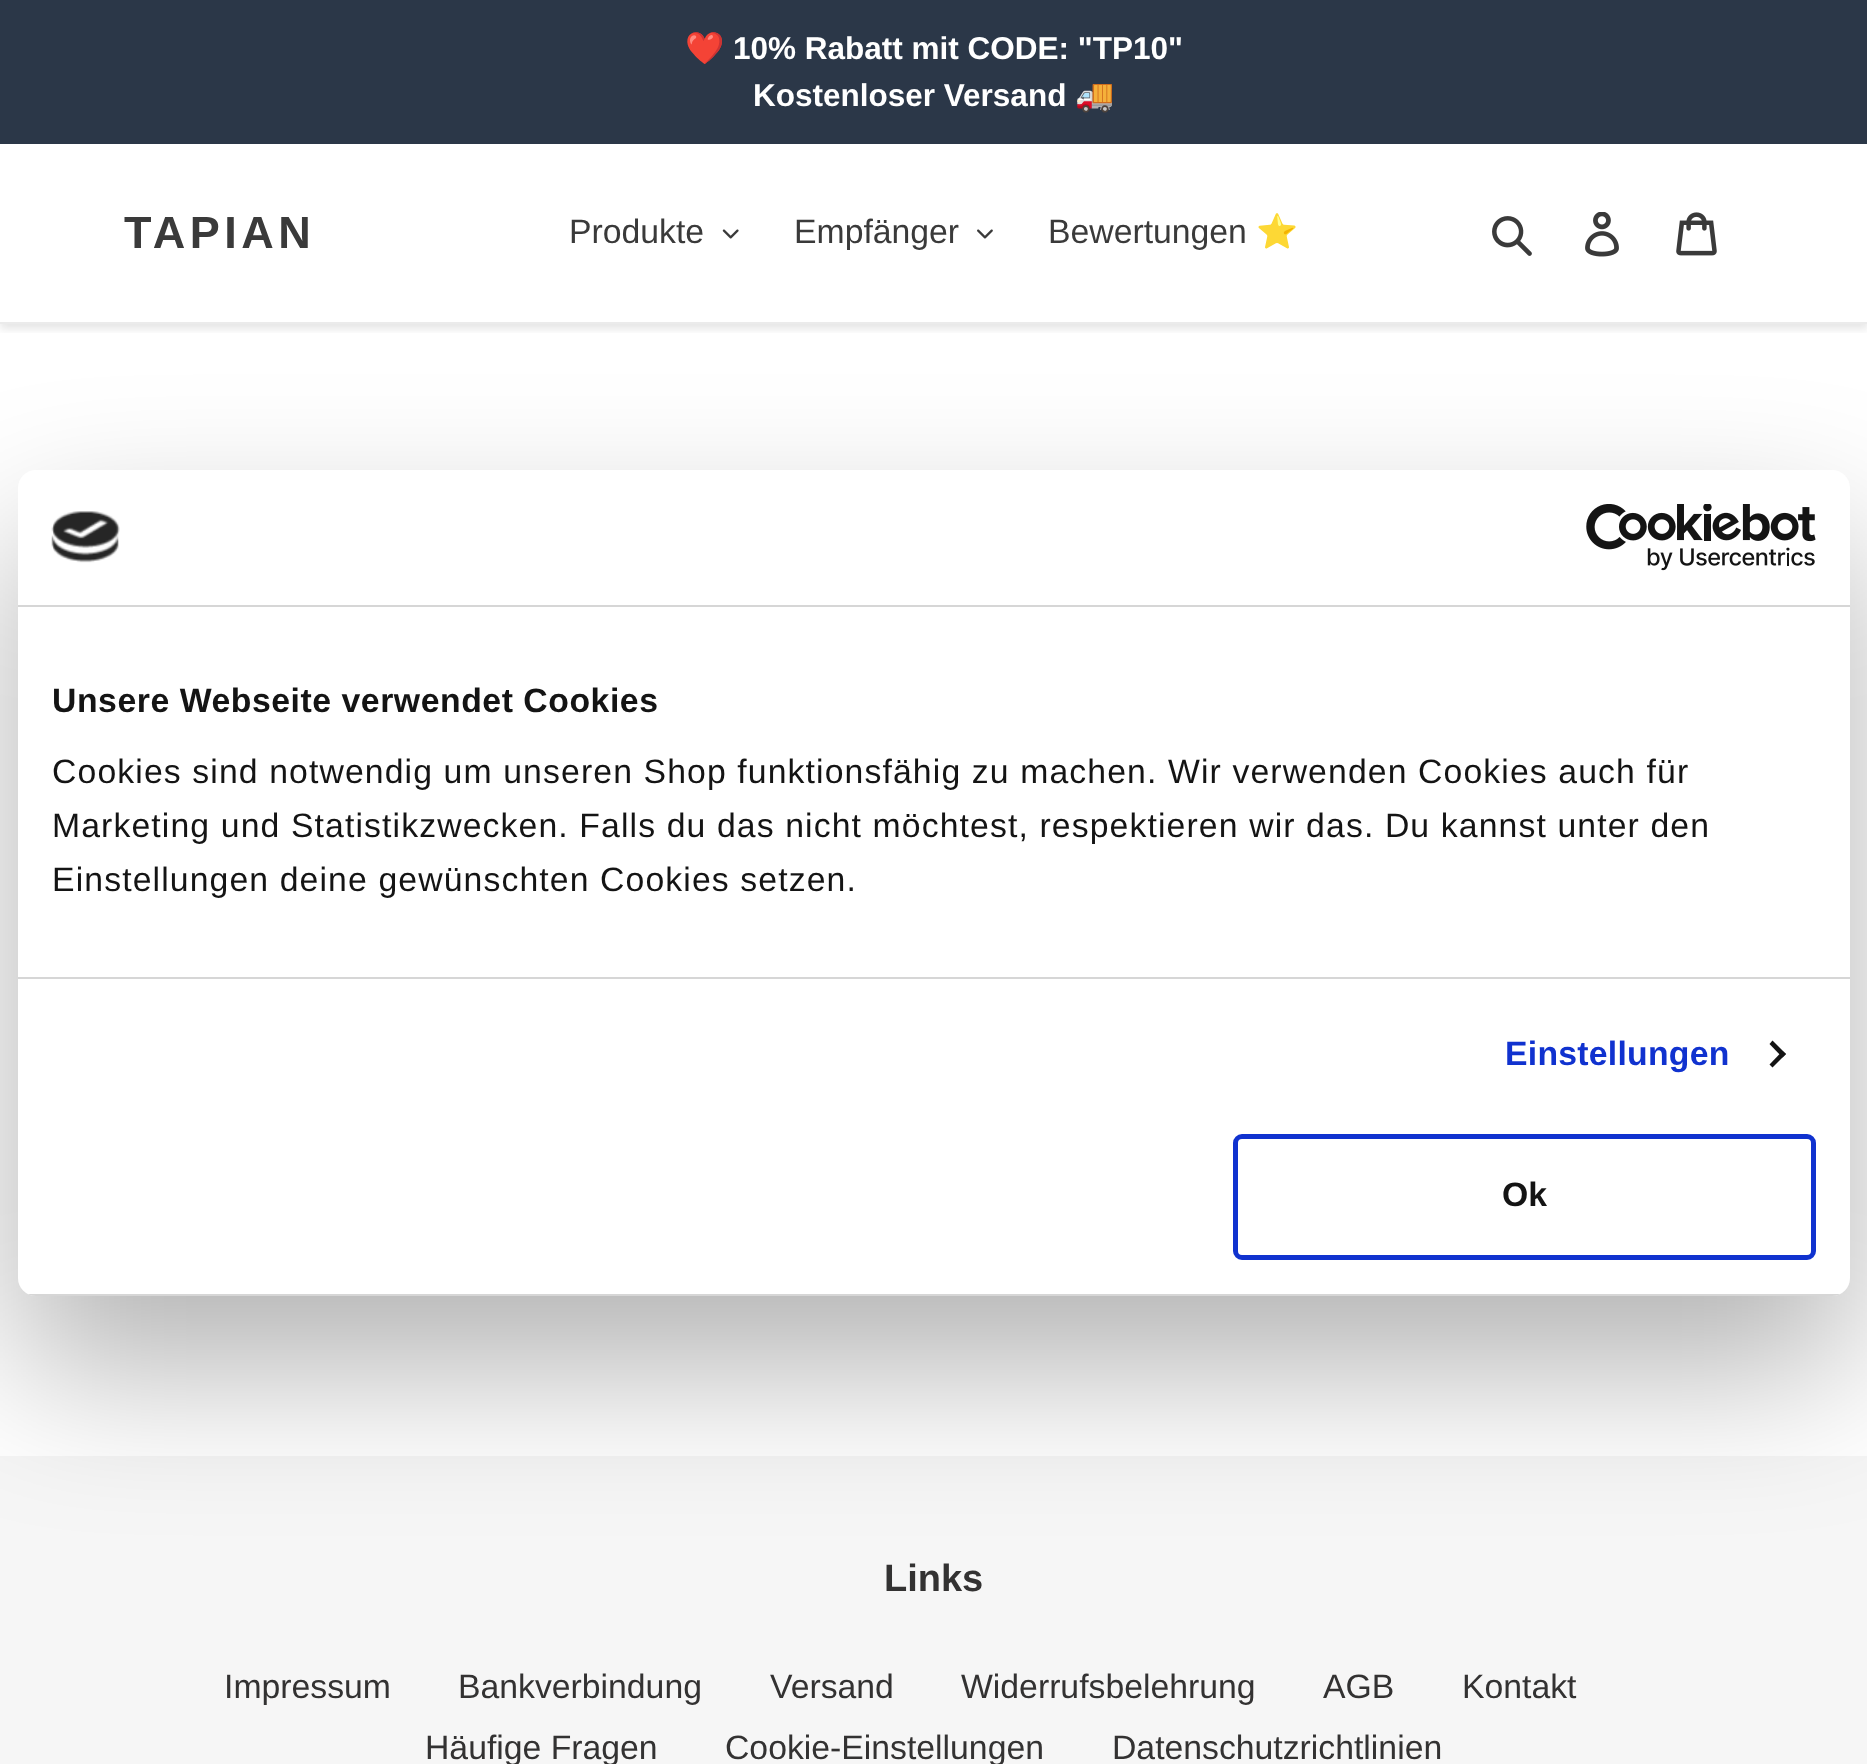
async function draw(canvas) {
	canvas.width = 1867;
	canvas.height = 1764;
	const c = canvas.getContext('2d');
	c.miterLimit = 4;
	c.fontKerning = 'normal';
	async function loadImage(src) {
		const img = new Image();
		img.src = src;
		await img.decode();
		return img;
	}

	c.fillStyle = '#fff';
	c.fillRect(0, 0, 1867, 1764);
	c.save();
	c.beginPath();
	c.rect(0, 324, 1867, 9);
	c.clip();
	c.fillStyle = '#0000001a';
	c.filter = 'blur(4.5px)';
	c.beginPath();
	c.rect(0, 5, 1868, 324);
	c.fill();
	c.filter = 'none';
	c.restore();
	c.fillStyle = '#2b3748';
	c.fillRect(0, 0, 1867, 144);
	c.font = 'bold 31.5px Noto Color Emoji';
	c.fillStyle = '#fff';
	c.fillText('❤️', 685, 59);
	c.font = 'bold 31.5px Liberation Sans';
	c.fillText('10% Rabatt mit CODE: "TP10"', 733, 59);
	c.fillText('Kostenloser Versand', 753, 106);
	c.font = 'bold 31.5px Noto Color Emoji';
	c.fillText('🚚', 1075, 106);
	c.fillStyle = '#ebebeb';
	c.fillRect(0, 322, 1867, 2);
	c.letterSpacing = '4.5px';
	c.font = 'bold 45px Liberation Sans';
	c.fillStyle = '#3a3a3a';
	c.fillText('TAPIAN', 124, 248);
	c.letterSpacing = '0px';
	c.font = '33.75px Liberation Sans';
	c.fillText('Produkte', 569, 243);
	c.drawImage(await loadImage('img1.png'), 722, 229, 17, 10);
	c.fillText('Empfänger', 794, 243);
	c.drawImage(await loadImage('img2.png'), 977, 229, 16, 10);
	c.fillText('Bewertungen', 1048, 243);
	c.font = '33.75px Noto Color Emoji';
	c.fillText('⭐', 1256, 243);
	c.drawImage(await loadImage('img3.png'), 1492, 216, 40, 40);
	c.drawImage(await loadImage('img4.png'), 1585, 212, 34, 45);
	c.drawImage(await loadImage('img5.png'), 1676, 212, 41, 44);
	c.fillStyle = '#f6f6f6';
	c.fillRect(0, 1456, 1867, 308);
	c.fillStyle = '#0000004d';
	c.filter = 'blur(76.5px)';
	c.beginPath();
	c.roundRect(18, 542, 1832, 826, 18);
	c.fill();
	c.filter = 'none';
	c.fillStyle = '#fff';
	c.beginPath();
	c.roundRect(18, 470, 1832, 826, 18);
	c.fill();
	c.fillStyle = '#d6d6d6';
	c.fillRect(18, 605, 1832, 2);
	c.drawImage(await loadImage('img6.png'), 51, 511, 69, 52);
	c.drawImage(await loadImage('img7.png'), 1586, 504, 230, 67);
	c.fillRect(18, 977, 1832, 2);
	c.letterSpacing = '0.55px';
	c.font = 'bold 33.75px Liberation Sans';
	c.fillStyle = '#141414';
	c.fillText('Unsere Webseite verwendet Cookies', 52, 712);
	c.letterSpacing = '1.12px';
	c.font = '33.75px Liberation Sans';
	for (const [text, x, y] of [
		['Cookies sind notwendig um unseren Shop funktionsfähig zu machen. Wir verwenden Cookies auch für', 52, 783],
		['Marketing und Statistikzwecken. Falls du das nicht möchtest, respektieren wir das. Du kannst unter den', 52, 837],
		['Einstellungen deine gewünschten Cookies setzen.', 52, 891],
	]) {
		c.fillText(text, x, y);
	}
	c.letterSpacing = '0.25px';
	c.font = 'bold 33.75px Liberation Sans';
	c.fillStyle = '#1032cf';
	c.fillText('Einstellungen', 1505, 1065);
	c.fillStyle = '#141414';
	c.beginPath();
	c.moveTo(1772.5, 1040.5);
	c.lineTo(1786, 1054);
	c.lineTo(1782.5, 1057.5);
	c.lineTo(1769.5, 1044);
	c.closePath();
	c.fill();
	c.beginPath();
	c.moveTo(1782.5, 1051);
	c.lineTo(1786, 1054);
	c.lineTo(1772.5, 1067.5);
	c.lineTo(1769.5, 1064.5);
	c.closePath();
	c.fill();
	c.save();
	c.beginPath();
	c.roundRect(18, 470, 1832, 826, 18);
	c.clip();
	c.fillStyle = '#d6d6d6';
	c.fillRect(28, 1294, 1812, 2);
	c.restore();
	c.beginPath();
	c.roundRect(1235.5, 1136.5, 578, 121, 6.5);
	c.strokeStyle = '#1032cf';
	c.lineWidth = 5;
	c.stroke();
	c.letterSpacing = '0px';
	c.fillText('Ok', 1502, 1206);
	c.font = 'bold 38px Liberation Sans';
	c.fillStyle = '#333232';
	c.fillText('Links', 884, 1591);
	c.font = '33.75px Liberation Sans';
	for (const [text, x, y] of [
		['Impressum', 224, 1698],
		['Bankverbindung', 458, 1698],
		['Versand', 770, 1698],
		['Widerrufsbelehrung', 961, 1698],
		['AGB', 1323, 1698],
		['Kontakt', 1462, 1698],
		['Häufige Fragen', 425, 1759],
		['Cookie-Einstellungen', 725, 1759],
		['Datenschutzrichtlinien', 1112, 1759],
	]) {
		c.fillText(text, x, y);
	}
}

draw(document.querySelector('canvas'));
